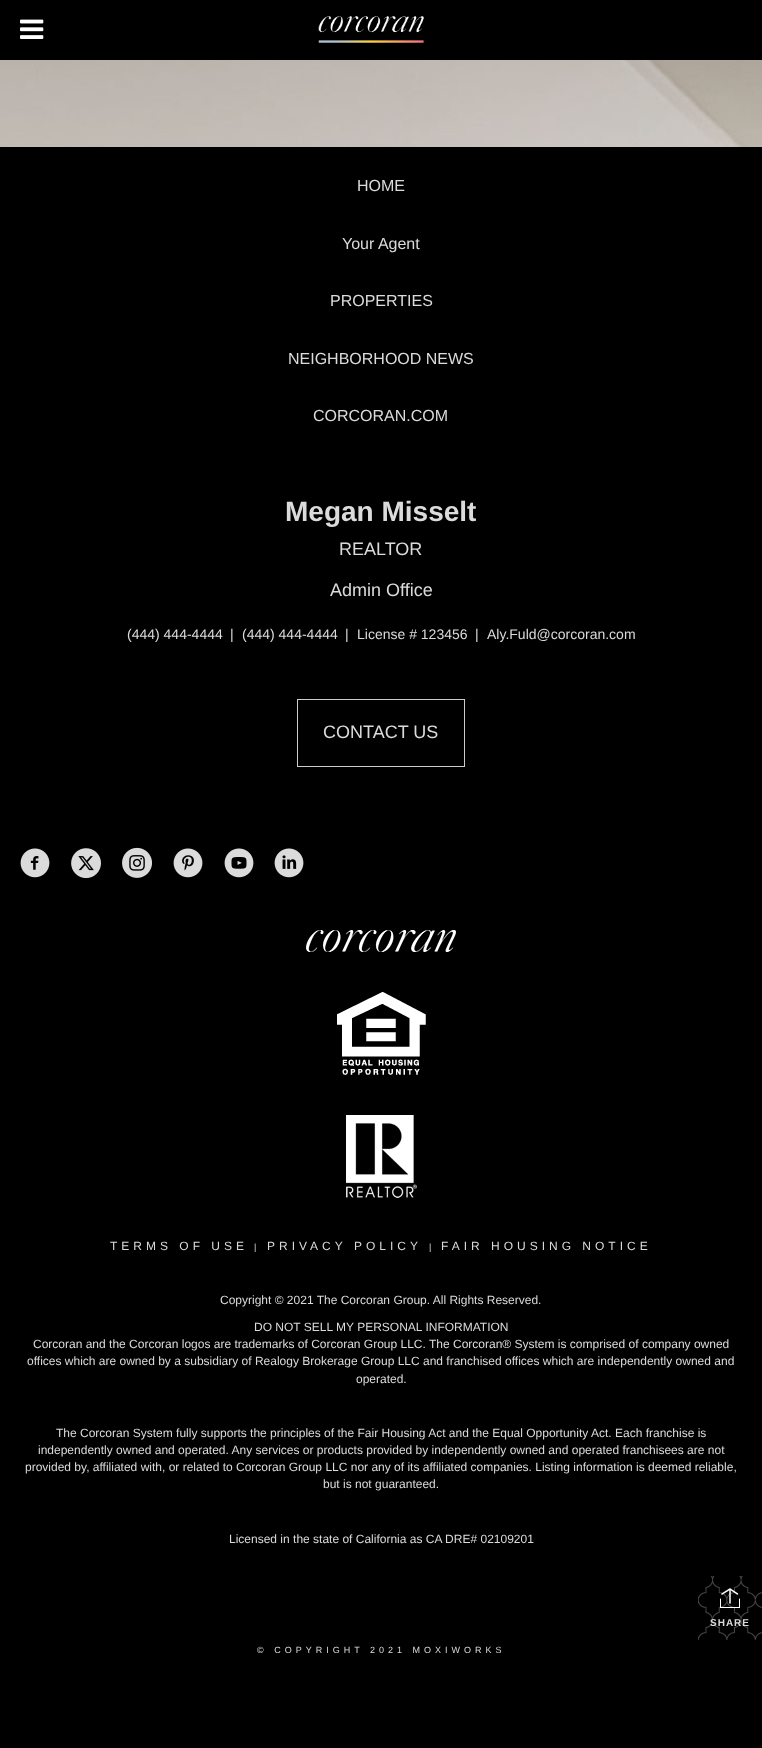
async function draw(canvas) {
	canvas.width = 762;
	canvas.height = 1748;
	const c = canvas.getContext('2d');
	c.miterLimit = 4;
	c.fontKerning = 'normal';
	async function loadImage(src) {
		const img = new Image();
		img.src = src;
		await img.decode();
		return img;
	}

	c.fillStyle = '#fff';
	c.fillRect(0, 0, 762, 1748);
	c.fillStyle = '#000';
	c.fillRect(0, 0, 762, 60);
	c.drawImage(await loadImage('img1.png'), 20, 19, 24, 20);
	c.drawImage(await loadImage('img2.png'), 318, 16, 106, 27);
	c.drawImage(await loadImage('img3.png'), 0, 60, 762, 87);
	c.fillRect(0, 147, 762, 1601);
	c.font = '16px Liberation Sans';
	c.fillStyle = '#dbdbdb';
	for (const [text, x, y] of [
		['HOME', 357, 191],
		['Your Agent', 342, 249],
		['PROPERTIES', 330, 306],
		['NEIGHBORHOOD NEWS', 288, 364],
		['CORCORAN.COM', 313, 421],
	]) {
		c.fillText(text, x, y);
	}
	c.font = 'bold 28px Liberation Sans';
	c.fillText('Megan Misselt', 285, 521);
	c.font = '18px Liberation Sans';
	c.fillText('REALTOR', 339, 555);
	c.fillText('Admin Office', 330, 596);
	c.font = '14px Liberation Sans';
	for (const [text, x, y] of [
		['(444) 444-4444', 127, 639],
		['|', 230, 639],
		['(444) 444-4444', 242, 639],
		['|', 345, 639],
		['License # 123456', 357, 639],
		['|', 475, 639],
		['Aly.Fuld@corcoran.com', 487, 639],
	]) {
		c.fillText(text, x, y);
	}
	c.strokeStyle = '#ccc';
	c.strokeRect(297.5, 699.5, 167, 67);
	c.font = '18px Liberation Sans';
	c.fillText('CONTACT US', 323, 738);
	c.drawImage(await loadImage('img4.png'), 20, 848, 30, 30);
	c.drawImage(await loadImage('img5.png'), 71, 848, 30, 31);
	c.drawImage(await loadImage('img6.png'), 122, 847, 30, 31);
	c.drawImage(await loadImage('img7.png'), 173, 848, 30, 30);
	c.drawImage(await loadImage('img8.png'), 224, 848, 30, 30);
	c.drawImage(await loadImage('img9.png'), 274, 848, 30, 30);
	c.drawImage(await loadImage('img10.png'), 306, 930, 150, 22);
	c.drawImage(await loadImage('img11.png'), 337, 992, 89, 83);
	c.drawImage(await loadImage('img12.png'), 346, 1115, 71, 83);
	c.letterSpacing = '4px';
	c.font = '12px Liberation Sans';
	c.fillText('TERMS OF USE', 110, 1250);
	c.font = '9px Liberation Sans';
	c.fillText('|', 254, 1250);
	c.font = '12px Liberation Sans';
	c.fillText('PRIVACY POLICY', 267, 1250);
	c.font = '9px Liberation Sans';
	c.fillText('|', 429, 1250);
	c.font = '12px Liberation Sans';
	c.fillText('FAIR HOUSING NOTICE', 441, 1250);
	c.letterSpacing = '0px';
	for (const [text, x, y] of [
		['Copyright © 2021 The Corcoran Group. All Rights Reserved.', 220, 1304],
		['DO NOT SELL MY PERSONAL INFORMATION', 254, 1331],
		['Corcoran and the Corcoran logos are trademarks of Corcoran Group LLC. The Corcoran® System is comprised of company owned', 33, 1348],
		['offices which are owned by a subsidiary of Realogy Brokerage Group LLC and franchised offices which are independently owned and', 27, 1365],
		['operated.', 356, 1383],
		['The Corcoran System fully supports the principles of the Fair Housing Act and the Equal Opportunity Act. Each franchise is', 56, 1437],
		['independently owned and operated. Any services or products provided by independently owned and operated franchisees are not', 38, 1454],
		['provided by, affiliated with, or related to Corcoran Group LLC nor any of its affiliated companies. Listing information is deemed reliable,', 25, 1471],
		['but is not guaranteed.', 323, 1488],
		['Licensed in the state of California as CA DRE# 02109201', 229, 1543],
	]) {
		c.fillText(text, x, y);
	}
	c.drawImage(await loadImage('img13.png'), 698, 1576, 64, 64);
	c.drawImage(await loadImage('img14.png'), 720, 1588, 20, 20);
	c.letterSpacing = '1px';
	c.font = 'bold 10px Liberation Sans';
	c.fillText('SHARE', 710, 1626);
	c.letterSpacing = '4px';
	c.font = '9px Liberation Sans';
	c.fillText('© COPYRIGHT 2021 MOXIWORKS', 257, 1653);
}

draw(document.querySelector('canvas'));
